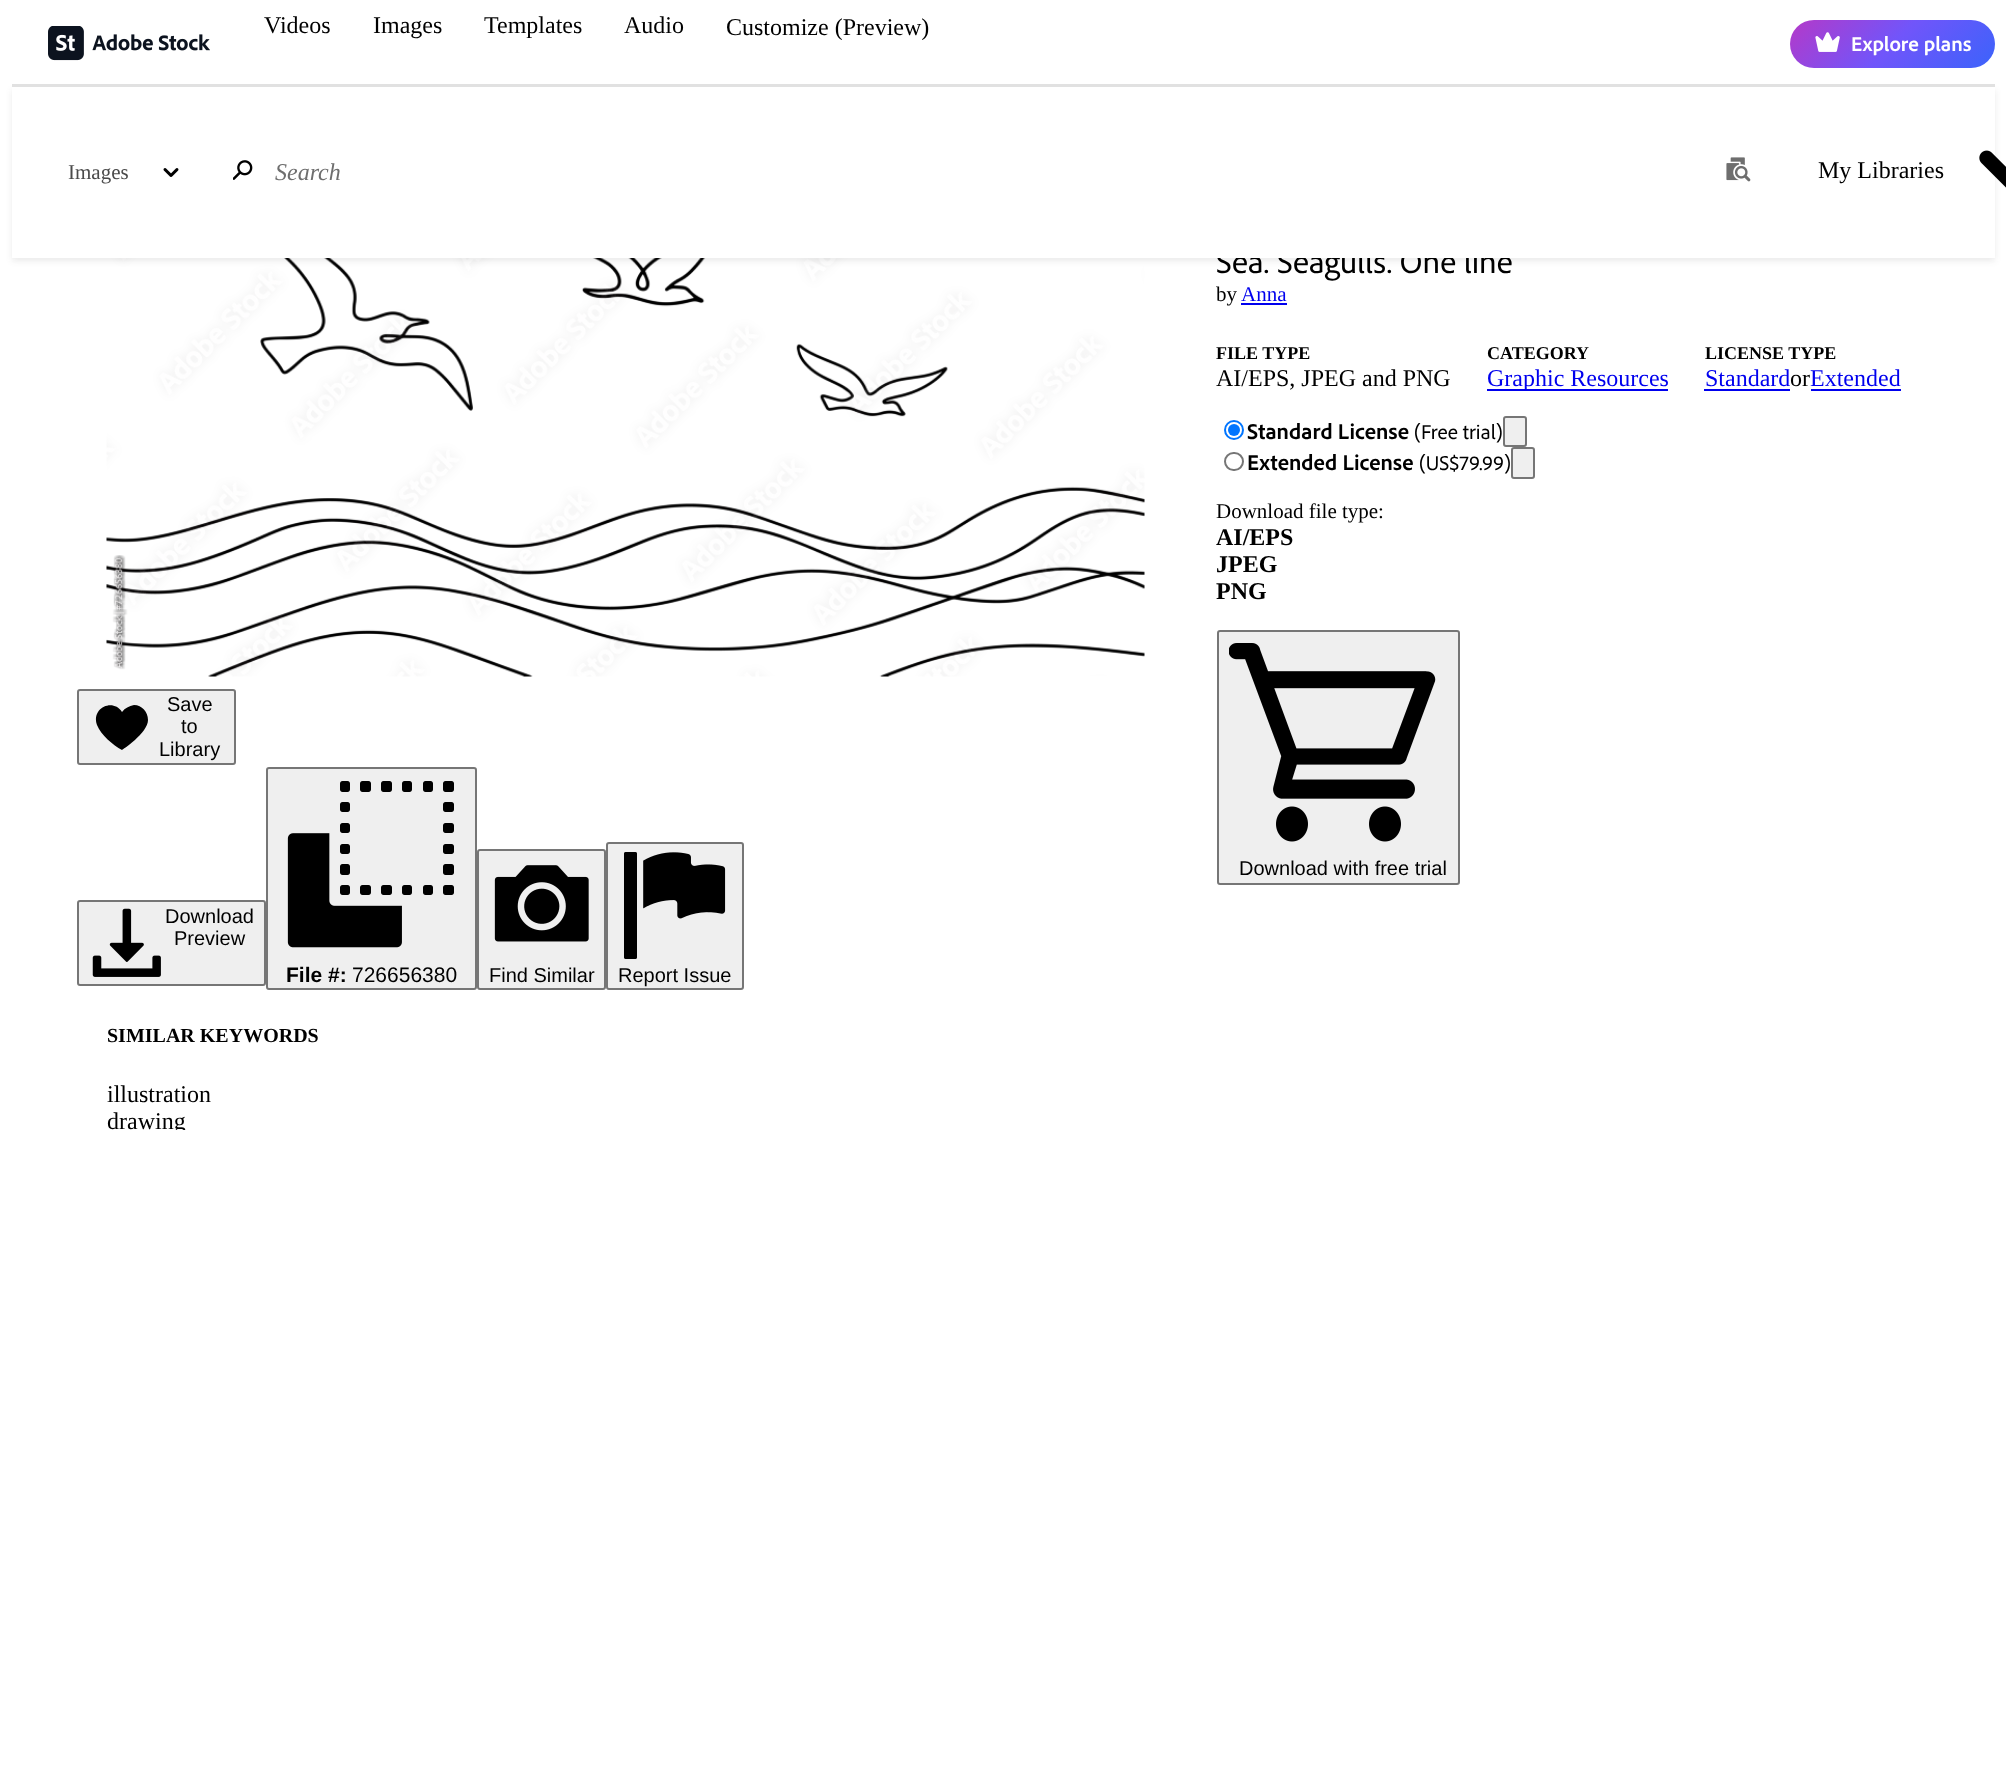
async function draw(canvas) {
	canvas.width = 2006;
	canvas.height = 1769;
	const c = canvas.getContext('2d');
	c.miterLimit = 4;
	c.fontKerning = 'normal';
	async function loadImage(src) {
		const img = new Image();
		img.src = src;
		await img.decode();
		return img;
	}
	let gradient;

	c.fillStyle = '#fff';
	c.fillRect(0, 0, 2006, 1769);
	c.drawImage(await loadImage('img7.png'), 106, 258, 1039, 419);
	c.fillStyle = '#3434341a';
	c.filter = 'blur(3px)';
	c.beginPath();
	c.rect(12, 90, 1983, 171);
	c.fill();
	c.filter = 'none';
	c.fillStyle = '#e1e1e1';
	c.fillRect(12, 84, 1983, 3);
	c.drawImage(await loadImage('img1.png'), 48, 26, 162, 35);
	c.font = '24px Liberation Serif';
	c.fillStyle = '#000';
	for (const [text, x, y] of [
		['Videos', 264, 33],
		['Images', 373, 33],
		['Templates', 484, 33],
		['Audio', 624, 33],
		['Customize (Preview)', 726, 35],
	]) {
		c.fillText(text, x, y);
	}
	gradient = c.createLinearGradient(1829, -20, 1956, 107);
	gradient.addColorStop(0, '#b539c8');
	gradient.addColorStop(0.5, '#7155fa');
	gradient.addColorStop(1, '#3b63fb');
	c.fillStyle = gradient;
	c.beginPath();
	c.roundRect(1790, 20, 205, 48, 24);
	c.fill();
	c.drawImage(await loadImage('img2.png'), 1815, 32, 25, 20);
	c.font = 'bold 21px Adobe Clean';
	c.fillStyle = '#fff';
	c.fillText('Explore plans', 1851, 51);
	c.font = '33px Adobe Clean';
	c.fillStyle = '#000';
	c.fillText('Sea. Seagulls. One line', 1216, 273);
	c.fillStyle = '#fff';
	c.fillRect(12, 87, 1983, 171);
	c.font = '21px Liberation Serif';
	c.fillStyle = '#4b4b4b';
	c.fillText('Images', 68, 179);
	c.drawImage(await loadImage('img3.png'), 163, 168, 16, 9);
	c.drawImage(await loadImage('img4.png'), 233, 160, 20, 20);
	c.font = 'italic 24px Liberation Serif';
	c.fillStyle = '#6e6e6e';
	c.fillText('Search', 275, 180);
	c.drawImage(await loadImage('img5.png'), 1726, 157, 25, 25);
	c.font = '24px Liberation Serif';
	c.fillStyle = '#000';
	c.fillText('My Libraries', 1818, 178);
	c.drawImage(await loadImage('img6.png'), 1979, 150, 27, 38);
	c.fillStyle = '#efefef';
	c.beginPath();
	c.roundRect(78, 690, 157, 74, 2);
	c.fill();
	c.strokeStyle = '#767676';
	c.lineWidth = 2;
	c.stroke();
	c.fillStyle = '#000';
	c.beginPath();
	c.moveTo(134, 705);
	c.bezierCurveTo(129, 706, 125, 708, 122, 712);
	c.bezierCurveTo(113, 698, 91, 708, 97, 725);
	c.bezierCurveTo(101, 735, 113, 745, 122, 750);
	c.bezierCurveTo(122, 750, 148, 733, 148, 720);
	c.bezierCurveTo(148, 712, 142, 705, 134, 705);
	c.closePath();
	c.fill('evenodd');
	c.font = '20px Liberation Sans';
	for (const [text, x, y] of [
		['Save', 167, 711],
		['to', 181, 733],
		['Library', 159, 756],
	]) {
		c.fillText(text, x, y);
	}
	c.fillStyle = '#efefef';
	c.beginPath();
	c.roundRect(78, 901, 187, 84, 2);
	c.fill();
	c.stroke();
	c.drawImage(await loadImage('img8.png'), 92, 908, 69, 69);
	c.fillStyle = '#000';
	c.fillText('Download', 165, 923);
	c.fillText('Preview', 174, 945);
	c.fillStyle = '#efefef';
	c.beginPath();
	c.roundRect(267, 768, 209, 221, 2);
	c.fill();
	c.stroke();
	c.drawImage(await loadImage('img9.png'), 287, 781, 167, 167);
	c.font = 'bold 21px Liberation Sans';
	c.fillStyle = '#000';
	c.fillText('File #:', 286, 982);
	c.font = '21px Liberation Sans';
	c.fillText('726656380', 352, 982);
	c.fillStyle = '#efefef';
	c.beginPath();
	c.roundRect(478, 850, 127, 139, 2);
	c.fill();
	c.stroke();
	c.drawImage(await loadImage('img10.png'), 494, 865, 95, 77);
	c.font = '20px Liberation Sans';
	c.fillStyle = '#000';
	c.fillText('Find Similar', 489, 982);
	c.fillStyle = '#efefef';
	c.beginPath();
	c.roundRect(607, 843, 136, 146, 2);
	c.fill();
	c.stroke();
	c.drawImage(await loadImage('img11.png'), 624, 852, 102, 107);
	c.fillStyle = '#000';
	c.fillText('Report Issue', 618, 982);
	c.font = '21px Liberation Serif';
	c.fillText('by', 1216, 301);
	c.fillStyle = '#00e';
	c.fillText('Anna', 1241, 301);
	c.fillRect(1241, 303, 46, 2);
	c.font = 'bold 18px Liberation Serif';
	c.fillStyle = '#000';
	c.fillText('FILE TYPE', 1216, 359);
	c.font = '24px Liberation Serif';
	c.fillText('AI/EPS, JPEG and PNG', 1216, 386);
	c.font = 'bold 18px Liberation Serif';
	c.fillText('CATEGORY', 1487, 359);
	c.fillStyle = '#00e';
	c.fillRect(1487, 389, 181, 2);
	c.font = '24px Liberation Serif';
	c.fillText('Graphic Resources', 1487, 386);
	c.font = 'bold 18px Liberation Serif';
	c.fillStyle = '#000';
	c.fillText('LICENSE TYPE', 1705, 359);
	c.font = '24px Liberation Serif';
	c.fillStyle = '#00e';
	c.fillText('Standard', 1705, 386);
	c.fillStyle = '#000';
	c.fillText('or', 1790, 386);
	c.fillStyle = '#00e';
	c.fillRect(1704, 389, 86, 2);
	c.fillRect(1811, 389, 90, 2);
	c.fillText('Extended', 1810, 386);
	c.beginPath();
	c.arc(1234, 430, 9, 0, 2 * Math.PI);
	c.strokeStyle = '#0075ff';
	c.stroke();
	c.fillStyle = '#0075ff';
	c.beginPath();
	c.arc(1234, 430, 6, 0, 2 * Math.PI);
	c.fill();
	c.font = 'bold 22.5px Adobe Clean';
	c.fillStyle = '#000';
	c.fillText('Standard License', 1247, 439);
	c.font = '21px Adobe Clean';
	c.fillText('(Free trial)', 1414, 439);
	c.fillStyle = '#efefef';
	c.beginPath();
	c.roundRect(1504, 417, 22, 29, 2);
	c.fill();
	c.strokeStyle = '#767676';
	c.stroke();
	c.beginPath();
	c.roundRect(1225, 453, 18, 17, 8.5);
	c.stroke();
	c.font = 'bold 22.5px Adobe Clean';
	c.fillStyle = '#000';
	c.fillText('Extended License', 1247, 470);
	c.font = '21px Adobe Clean';
	c.fillText('(US$79.99)', 1419, 470);
	c.fillStyle = '#efefef';
	c.beginPath();
	c.roundRect(1512, 448, 22, 30, 2);
	c.fill();
	c.stroke();
	c.font = '21px Liberation Serif';
	c.fillStyle = '#000';
	c.fillText('Download file type:', 1216, 518);
	c.font = 'bold 24px Liberation Serif';
	for (const [text, x, y] of [
		['AI/EPS', 1216, 545],
		['JPEG', 1216, 572],
		['PNG', 1216, 599],
	]) {
		c.fillText(text, x, y);
	}
	c.fillStyle = '#efefef';
	c.beginPath();
	c.roundRect(1218, 631, 241, 253, 2);
	c.fill();
	c.stroke();
	c.drawImage(await loadImage('img12.png'), 1229, 643, 207, 199);
	c.font = '20px Liberation Sans';
	c.fillStyle = '#000';
	c.fillText('Download with free trial', 1239, 875);
	c.font = 'bold 20px Liberation Serif';
	c.fillText('SIMILAR KEYWORDS', 107, 1042);
	c.font = '24px Liberation Serif';
	c.fillText('illustration', 107, 1102);
	c.save();
	c.beginPath();
	c.rect(107, 1082, 1794, 48);
	c.clip();
	c.fillText('drawing', 107, 1129);
	c.restore();
}

draw(document.querySelector('canvas'));
